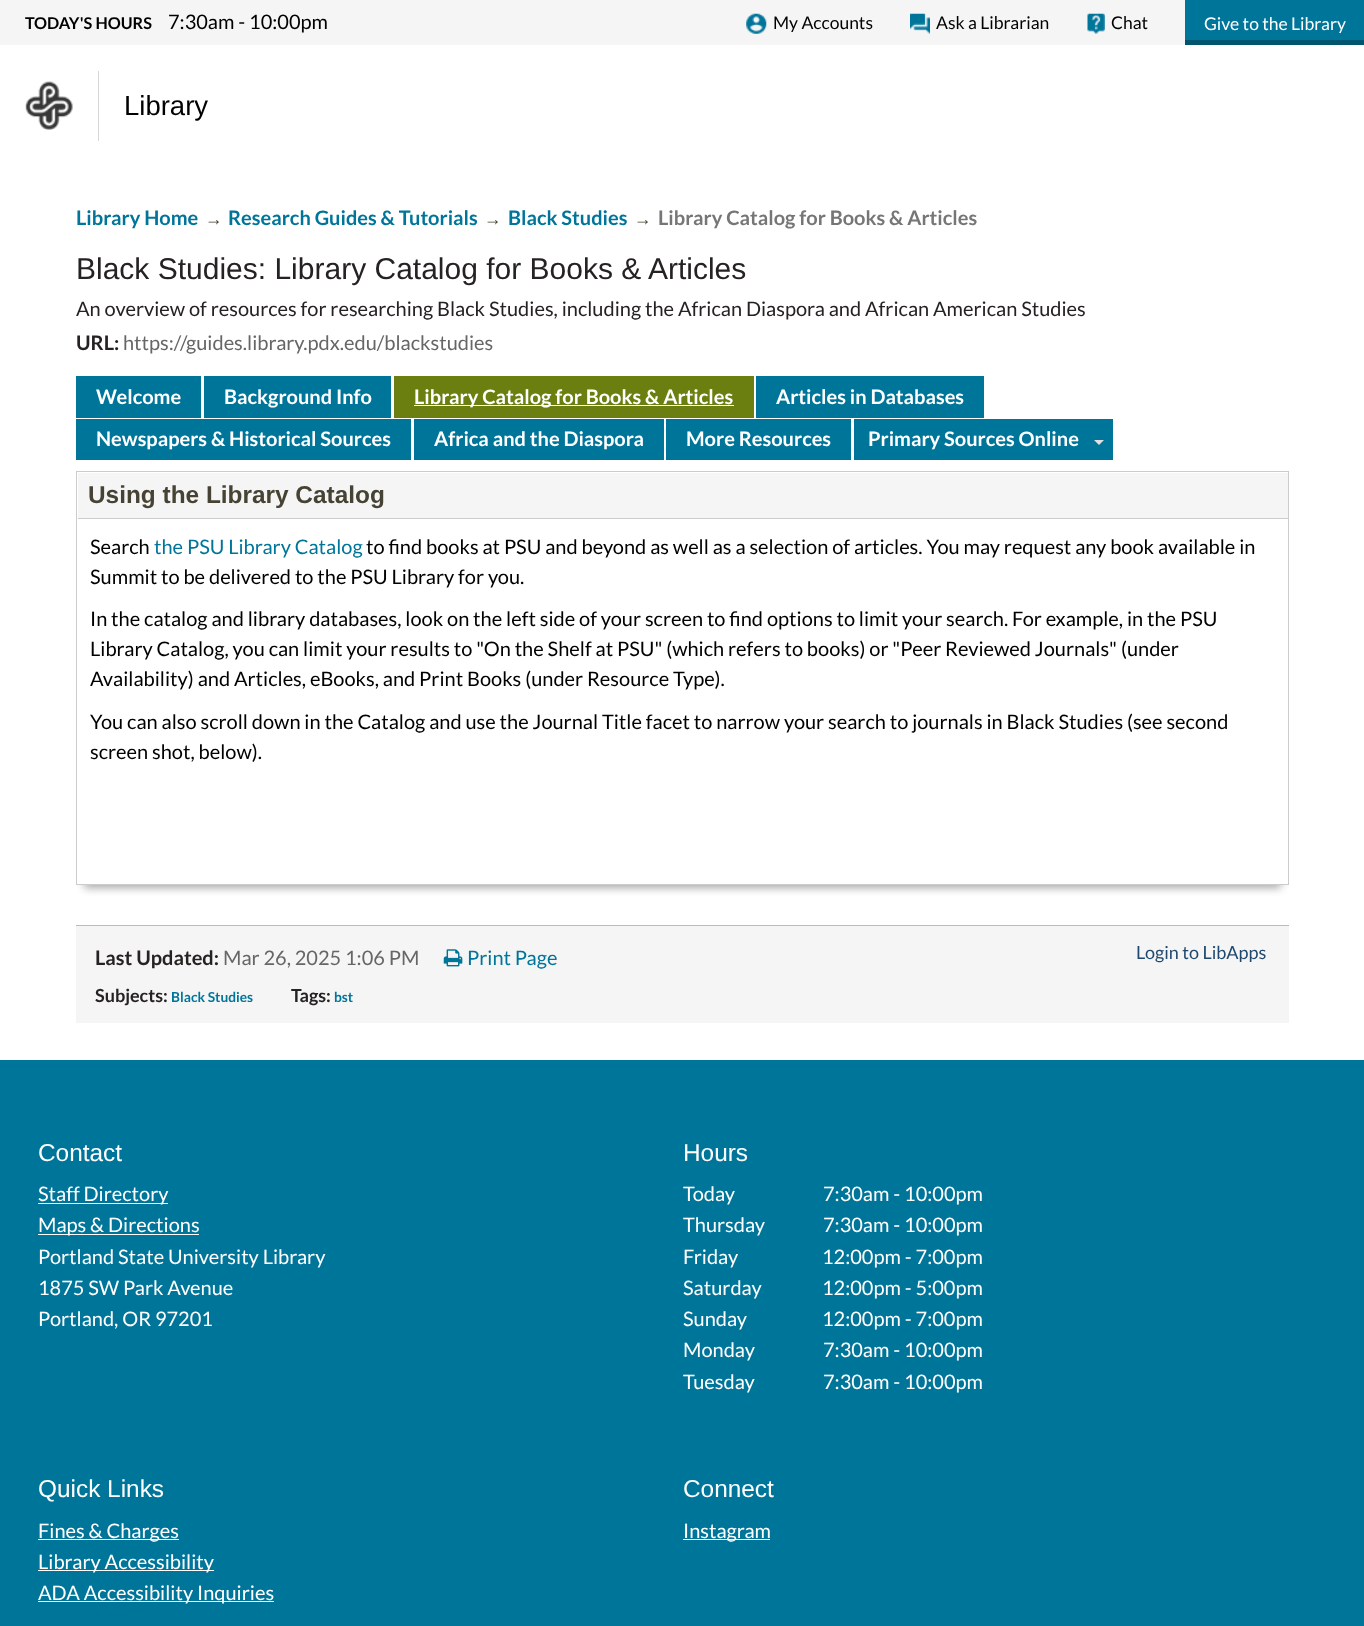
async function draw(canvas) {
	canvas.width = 1364;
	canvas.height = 1626;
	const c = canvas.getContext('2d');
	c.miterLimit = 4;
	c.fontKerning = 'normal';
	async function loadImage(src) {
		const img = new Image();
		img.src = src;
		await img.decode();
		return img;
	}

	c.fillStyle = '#f5f5f5';
	c.fillRect(0, 0, 1364, 1626);
	c.font = 'bold 16.25px Lato';
	c.fillStyle = '#000';
	c.fillText('TODAY\'S HOURS', 25, 29);
	c.font = '20px Lato';
	c.fillText('7:30am - 10:00pm', 168, 29);
	c.drawImage(await loadImage('img1.png'), 746, 13, 21, 21);
	c.font = '17.5px Lato';
	c.fillText('My Accounts', 773, 29);
	c.drawImage(await loadImage('img2.png'), 910, 13, 20, 21);
	c.fillText('Ask a Librarian', 936, 29);
	c.drawImage(await loadImage('img3.png'), 1087, 13, 18, 21);
	c.fillText('Chat', 1111, 29);
	c.fillStyle = '#00546e';
	c.fillRect(1185, 40, 179, 5);
	c.fillStyle = '#00759a';
	c.fillRect(1185, 0, 179, 40);
	c.fillStyle = '#fff';
	c.fillText('Give to the Library', 1204, 30);
	c.fillRect(0, 45, 1364, 1015);
	c.drawImage(await loadImage('img4.png'), 25, 81, 48, 49);
	c.fillStyle = '#d8d8d8';
	c.fillRect(98, 71, 1, 70);
	c.font = '27.5px Liberation Sans';
	c.fillStyle = '#000';
	c.fillText('Library', 124, 115);
	c.font = 'bold 20px Lato';
	c.fillStyle = '#00759a';
	c.fillText('Library Home', 76, 225);
	c.font = 'bold 17.5px Liberation Sans';
	c.fillStyle = '#474334';
	c.fillText('→', 205, 225);
	c.font = 'bold 20px Lato';
	c.fillStyle = '#00759a';
	c.fillText('Research Guides & Tutorials', 228, 225);
	c.font = 'bold 17.5px Liberation Sans';
	c.fillStyle = '#474334';
	c.fillText('→', 484, 225);
	c.font = 'bold 20px Lato';
	c.fillStyle = '#00759a';
	c.fillText('Black Studies', 508, 225);
	c.font = 'bold 17.5px Liberation Sans';
	c.fillStyle = '#474334';
	c.fillText('→', 634, 225);
	c.font = 'bold 20px Lato';
	c.fillStyle = '#767676';
	c.fillText('Library Catalog for Books & Articles', 658, 225);
	c.font = '30px Liberation Sans';
	c.fillStyle = '#262222';
	c.fillText('Black Studies: Library Catalog for Books & Articles', 76, 279);
	c.font = '20px Lato';
	c.fillText('An overview of resources for researching Black Studies, including the African Diaspora and African American Studies', 76, 316);
	c.font = 'bold 20px Lato';
	c.fillText('URL:', 76, 350);
	c.font = '20px Lato';
	c.fillStyle = '#666';
	c.fillText('https://guides.library.pdx.edu/blackstudies', 123, 350);
	c.fillStyle = '#00759a';
	c.fillRect(76, 376, 125, 42);
	c.font = 'bold 20px Lato';
	c.fillStyle = '#fff';
	c.fillText('Welcome', 96, 404);
	c.fillStyle = '#00759a';
	c.fillRect(204, 376, 187, 42);
	c.fillStyle = '#fff';
	c.fillText('Background Info', 224, 404);
	c.fillStyle = '#6a7f10';
	c.fillRect(394, 376, 360, 42);
	c.fillStyle = '#fff';
	c.fillRect(414, 405, 320, 1);
	c.fillText('Library Catalog for Books & Articles', 414, 404);
	c.fillStyle = '#00759a';
	c.fillRect(756, 376, 228, 42);
	c.fillStyle = '#fff';
	c.fillText('Articles in Databases', 776, 404);
	c.fillStyle = '#00759a';
	c.fillRect(76, 419, 335, 41);
	c.fillStyle = '#fff';
	c.fillText('Newspapers & Historical Sources', 96, 446);
	c.fillStyle = '#00759a';
	c.fillRect(414, 419, 250, 41);
	c.fillStyle = '#fff';
	c.fillText('Africa and the Diaspora', 434, 446);
	c.fillStyle = '#00759a';
	c.fillRect(666, 419, 185, 41);
	c.fillStyle = '#fff';
	c.fillText('More Resources', 686, 446);
	c.fillStyle = '#00759a';
	c.fillRect(854, 419, 259, 41);
	c.fillStyle = '#fff';
	c.fillText('Primary Sources Online', 868, 446);
	c.fillStyle = '#e1e1e1';
	c.beginPath();
	c.moveTo(1094, 440);
	c.lineTo(1104, 440);
	c.lineTo(1099, 445);
	c.closePath();
	c.fill();
	c.save();
	c.beginPath();
	c.rect(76, 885, 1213, 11);
	c.clip();
	c.fillStyle = '#aaa';
	c.filter = 'blur(4px)';
	c.beginPath();
	c.rect(84, 489, 1197, 399);
	c.fill();
	c.filter = 'none';
	c.restore();
	c.strokeStyle = '#ccc';
	c.strokeRect(76.5, 471.5, 1212, 413);
	c.fillStyle = '#f5f5f5';
	c.fillRect(78, 473, 1210, 45);
	c.fillStyle = '#ccc';
	c.fillRect(78, 518, 1210, 1);
	c.font = 'bold 24.4px Liberation Sans';
	c.fillStyle = '#474334';
	c.fillText('Using the Library Catalog', 88, 503);
	c.font = '20px Lato';
	c.fillStyle = '#000';
	c.fillText('Search', 90, 554);
	c.fillStyle = '#00759a';
	c.fillText('the PSU Library Catalog', 154, 554);
	c.fillStyle = '#000';
	for (const [text, x, y] of [
		['to find books at PSU and beyond as well as a selection of articles. You may request any book available in', 366, 554],
		['Summit to be delivered to the PSU Library for you.', 90, 584],
		['In the catalog and library databases, look on the left side of your screen to find options to limit your search. For example, in the PSU', 90, 626],
		['Library Catalog, you can limit your results to "On the Shelf at PSU" (which refers to books) or "Peer Reviewed Journals" (under', 90, 656],
		['Availability) and Articles, eBooks, and Print Books (under Resource Type).', 90, 686],
		['You can also scroll down in the Catalog and use the Journal Title facet to narrow your search to journals in Black Studies (see second', 90, 729],
		['screen shot, below).', 90, 759],
	]) {
		c.fillText(text, x, y);
	}
	c.fillStyle = '#f5f5f5';
	c.fillRect(76, 926, 1213, 97);
	c.fillStyle = '#bbb';
	c.fillRect(76, 925, 1213, 1);
	c.font = 'bold 20px Lato';
	c.fillStyle = '#262222';
	c.fillText('Last Updated:', 95, 965);
	c.font = '20px Lato';
	c.fillStyle = '#666';
	c.fillText('Mar 26, 2025 1:06 PM', 223, 965);
	c.drawImage(await loadImage('img5.png'), 443, 949, 20, 18);
	c.fillStyle = '#00759a';
	c.fillText('Print Page', 467, 965);
	c.font = '18px Lato';
	c.fillStyle = '#1f496e';
	c.fillText('Login to LibApps', 1136, 959);
	c.font = 'bold 18px Lato';
	c.fillStyle = '#262222';
	c.fillText('Subjects:', 95, 1002);
	c.font = 'bold 13.75px Lato';
	c.fillStyle = '#00759a';
	c.fillText('Black Studies', 171, 1002);
	c.font = 'bold 18px Lato';
	c.fillStyle = '#262222';
	c.fillText('Tags:', 291, 1002);
	c.font = 'bold 13.75px Lato';
	c.fillStyle = '#00759a';
	c.fillText('bst', 334, 1002);
	c.fillRect(0, 1060, 1364, 566);
	c.font = '24.4px Liberation Sans';
	c.fillStyle = '#fff';
	c.fillText('Contact', 38, 1161);
	c.fillRect(38, 1203, 130, 1);
	c.font = '20px Lato';
	c.fillText('Staff Directory', 38, 1201);
	c.fillRect(38, 1234, 161, 1);
	for (const [text, x, y] of [
		['Maps & Directions', 38, 1232],
		['Portland State University Library', 38, 1264],
		['1875 SW Park Avenue', 38, 1295],
		['Portland, OR 97201', 38, 1326],
	]) {
		c.fillText(text, x, y);
	}
	c.font = '24.4px Liberation Sans';
	c.fillText('Hours', 683, 1161);
	c.font = '20px Lato';
	for (const [text, x, y] of [
		['Today', 683, 1201],
		['7:30am - 10:00pm', 823, 1201],
		['Thursday', 683, 1232],
		['7:30am - 10:00pm', 823, 1232],
		['Friday', 683, 1264],
		['12:00pm - 7:00pm', 822, 1264],
		['Saturday', 683, 1295],
		['12:00pm - 5:00pm', 822, 1295],
		['Sunday', 683, 1326],
		['12:00pm - 7:00pm', 822, 1326],
		['Monday', 683, 1357],
		['7:30am - 10:00pm', 823, 1357],
		['Tuesday', 683, 1389],
		['7:30am - 10:00pm', 823, 1389],
	]) {
		c.fillText(text, x, y);
	}
	c.font = '24.4px Liberation Sans';
	c.fillText('Quick Links', 38, 1497);
	c.fillRect(38, 1539, 141, 1);
	c.font = '20px Lato';
	c.fillText('Fines & Charges', 38, 1538);
	c.fillRect(38, 1570, 176, 1);
	c.fillText('Library Accessibility', 38, 1569);
	c.fillRect(38, 1601, 236, 1);
	c.fillText('ADA Accessibility Inquiries', 38, 1600);
	c.font = '24.4px Liberation Sans';
	c.fillText('Connect', 683, 1497);
	c.fillRect(683, 1539, 87, 1);
	c.font = '20px Lato';
	c.fillText('Instagram', 683, 1538);
}

draw(document.querySelector('canvas'));
